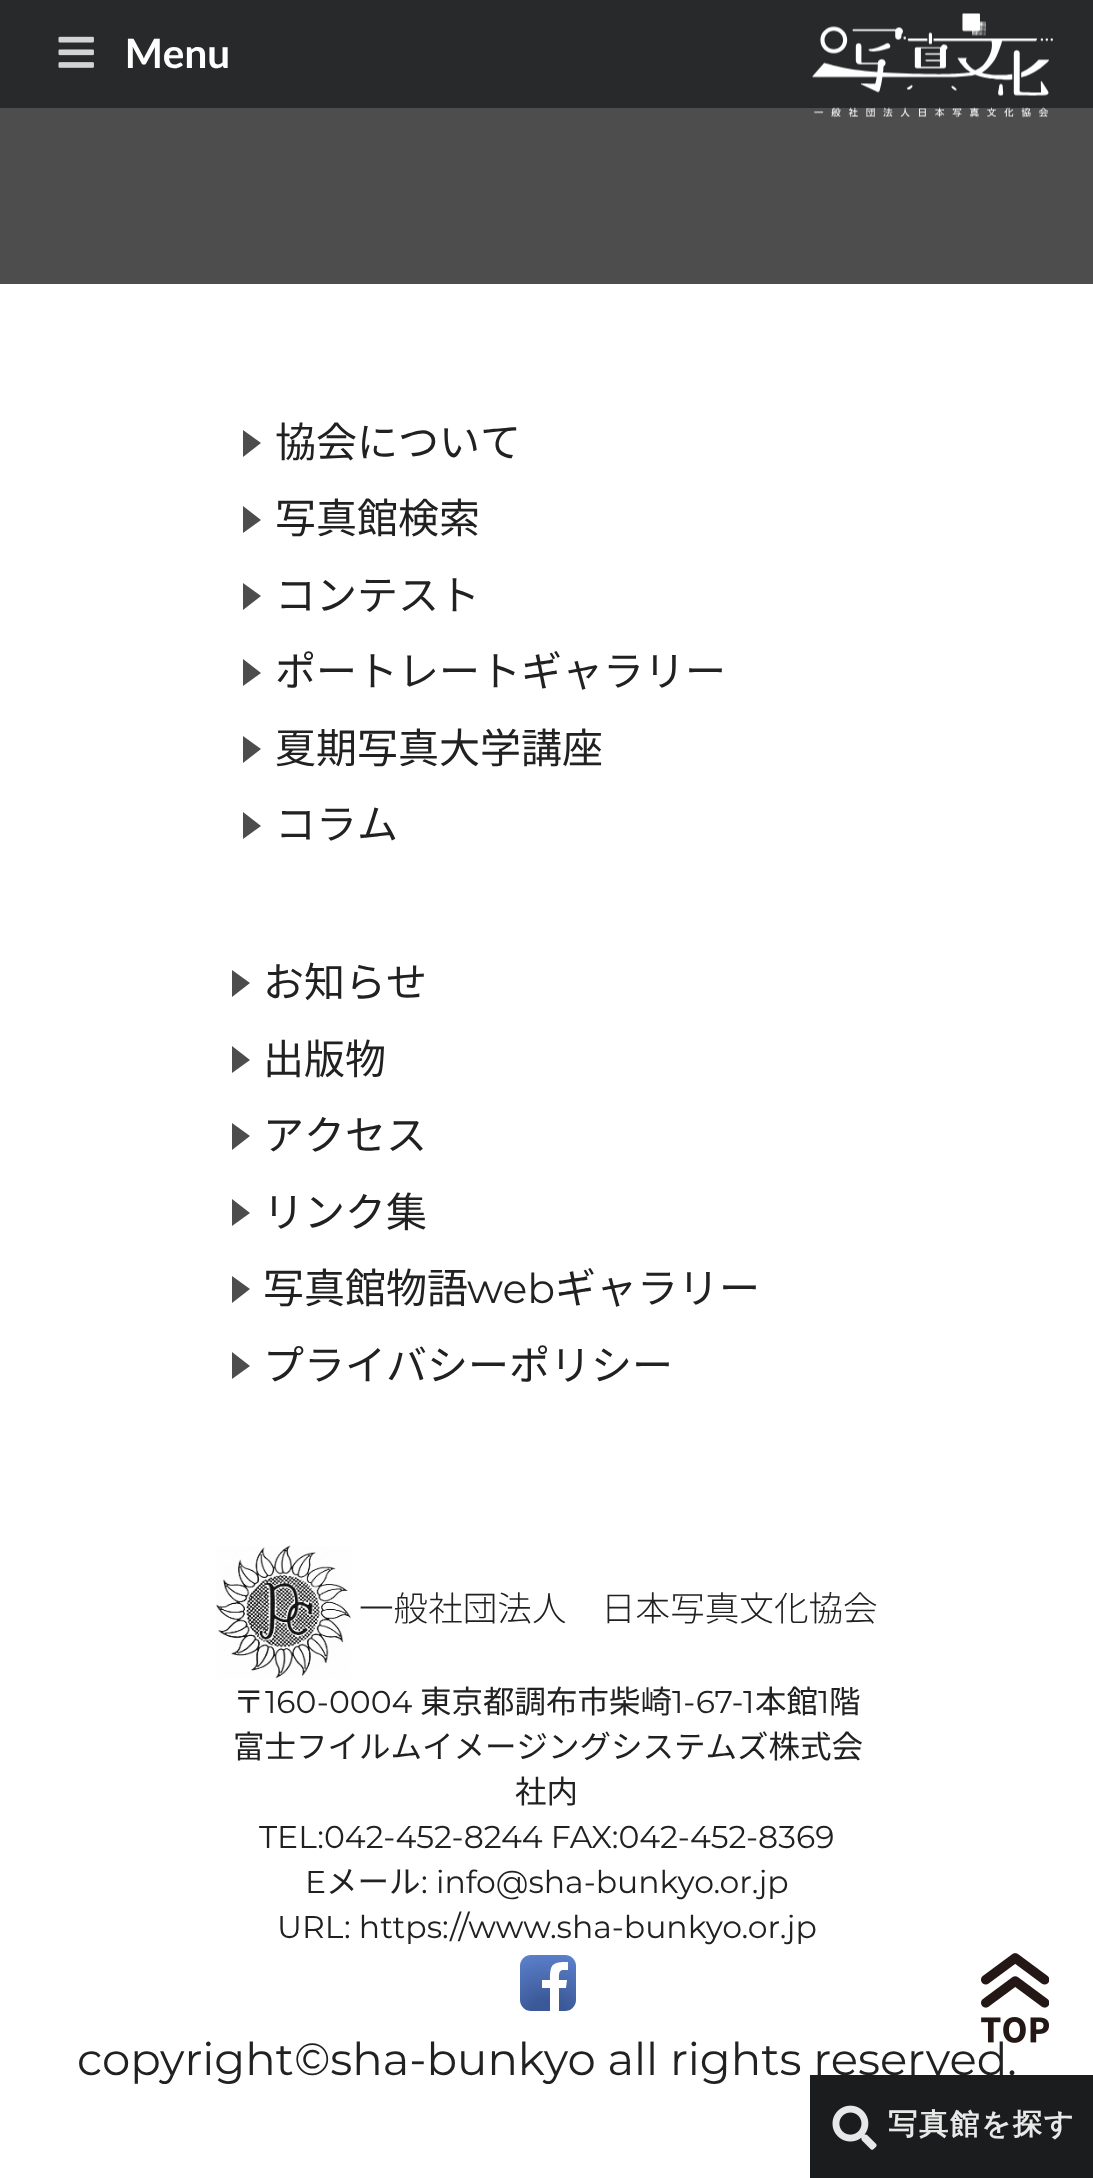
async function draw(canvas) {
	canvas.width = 1093;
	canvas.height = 2178;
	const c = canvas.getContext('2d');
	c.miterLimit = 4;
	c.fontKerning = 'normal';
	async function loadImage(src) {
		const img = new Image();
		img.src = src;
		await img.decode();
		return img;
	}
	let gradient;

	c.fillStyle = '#fff';
	c.fillRect(0, 0, 1093, 2178);
	c.fillStyle = '#27292a';
	c.fillRect(0, 0, 1093, 108);
	c.drawImage(await loadImage('img1.png'), 58, 36, 36, 32);
	c.font = 'bold 40.5px Lato';
	c.fillStyle = '#fff';
	c.fillText('Menu', 125, 68);
	c.fillStyle = '#4d4d4d';
	c.fillRect(0, 108, 1093, 176);
	c.drawImage(await loadImage('img2.png'), 812, 13, 241, 105);
	c.font = '45.05px Montserrat';
	c.fillStyle = '#212121';
	c.fillText('copyright©sha-bunkyo all rights reserved.', 77, 2075);
	c.fillStyle = '#1b1c1d';
	c.fillRect(810, 2075, 283, 103);
	c.drawImage(await loadImage('img3.png'), 832, 2105, 45, 45);
	c.letterSpacing = '1.75px';
	c.font = 'bold 29.25px WenQuanYi Zen Hei';
	c.fillStyle = '#e8e8e8';
	c.fillText('写真館を探す', 888, 2134);
	c.fillStyle = '#4d4d4d';
	c.beginPath();
	c.moveTo(243, 457);
	c.lineTo(243, 430);
	c.lineTo(261, 443);
	c.closePath();
	c.fill();
	c.letterSpacing = '0px';
	c.font = '41px Noto Sans JP';
	c.fillStyle = '#212121';
	c.fillText('協会について', 275, 457);
	c.fillStyle = '#4d4d4d';
	c.beginPath();
	c.moveTo(243, 533);
	c.lineTo(243, 506);
	c.lineTo(261, 520);
	c.closePath();
	c.fill();
	c.fillStyle = '#212121';
	c.fillText('写真館検索', 275, 533);
	c.fillStyle = '#4d4d4d';
	c.beginPath();
	c.moveTo(243, 610);
	c.lineTo(243, 583);
	c.lineTo(261, 596);
	c.closePath();
	c.fill();
	c.fillStyle = '#212121';
	c.fillText('コンテスト', 275, 610);
	c.fillStyle = '#4d4d4d';
	c.beginPath();
	c.moveTo(243, 686);
	c.lineTo(243, 659);
	c.lineTo(261, 673);
	c.closePath();
	c.fill();
	c.fillStyle = '#212121';
	c.fillText('ポートレートギャラリー', 275, 686);
	c.fillStyle = '#4d4d4d';
	c.beginPath();
	c.moveTo(243, 763);
	c.lineTo(243, 736);
	c.lineTo(261, 749);
	c.closePath();
	c.fill();
	c.fillStyle = '#212121';
	c.fillText('夏期写真大学講座', 275, 763);
	c.fillStyle = '#4d4d4d';
	c.beginPath();
	c.moveTo(243, 839);
	c.lineTo(243, 812);
	c.lineTo(261, 826);
	c.closePath();
	c.fill();
	c.fillStyle = '#212121';
	c.fillText('コラム', 275, 839);
	c.fillStyle = '#4d4d4d';
	c.beginPath();
	c.moveTo(232, 997);
	c.lineTo(232, 970);
	c.lineTo(250, 983);
	c.closePath();
	c.fill();
	c.fillStyle = '#212121';
	c.fillText('お知らせ', 263, 997);
	c.fillStyle = '#4d4d4d';
	c.beginPath();
	c.moveTo(232, 1073);
	c.lineTo(232, 1046);
	c.lineTo(250, 1060);
	c.closePath();
	c.fill();
	c.fillStyle = '#212121';
	c.fillText('出版物', 263, 1074);
	c.fillStyle = '#4d4d4d';
	c.beginPath();
	c.moveTo(232, 1150);
	c.lineTo(232, 1123);
	c.lineTo(250, 1136);
	c.closePath();
	c.fill();
	c.fillStyle = '#212121';
	c.fillText('アクセス', 263, 1150);
	c.fillStyle = '#4d4d4d';
	c.beginPath();
	c.moveTo(232, 1226);
	c.lineTo(232, 1199);
	c.lineTo(250, 1213);
	c.closePath();
	c.fill();
	c.fillStyle = '#212121';
	c.fillText('リンク集', 263, 1227);
	c.fillStyle = '#4d4d4d';
	c.beginPath();
	c.moveTo(232, 1303);
	c.lineTo(232, 1276);
	c.lineTo(250, 1289);
	c.closePath();
	c.fill();
	c.fillStyle = '#212121';
	c.fillText('写真館物語', 263, 1303);
	c.font = '41px Montserrat';
	c.fillText('web', 467, 1303);
	c.font = '41px Noto Sans JP';
	c.fillText('ギャラリー', 555, 1303);
	c.fillStyle = '#4d4d4d';
	c.beginPath();
	c.moveTo(232, 1379);
	c.lineTo(232, 1352);
	c.lineTo(250, 1366);
	c.closePath();
	c.fill();
	c.fillStyle = '#212121';
	c.fillText('プライバシーポリシー', 263, 1380);
	c.drawImage(await loadImage('img4.png'), 216, 1545, 135, 134);
	c.font = '300 34.6px Noto Sans JP';
	c.fillText('一般社団法人　日本写真文化協会', 359, 1621);
	c.font = '31.5px Noto Sans JP';
	c.fillText('〒', 233, 1713);
	c.font = '31.5px Montserrat';
	c.fillText('160-0004', 265, 1713);
	c.font = '31.5px Noto Sans JP';
	c.fillText('東京都調布市柴崎', 420, 1713);
	c.font = '31.5px Montserrat';
	c.fillText('1-67-1', 672, 1713);
	c.font = '31.5px Noto Sans JP';
	c.fillText('本館', 755, 1713);
	c.font = '31.5px Montserrat';
	c.fillText('1', 818, 1713);
	c.font = '31.5px Noto Sans JP';
	for (const [text, x, y] of [
		['階', 829, 1713],
		['富士フイルムイメージングシステムズ株式会', 233, 1758],
		['社内', 515, 1803],
	]) {
		c.fillText(text, x, y);
	}
	c.font = '31.5px Montserrat';
	c.fillText('TEL:042-452-8244 FAX:042-452-8369', 259, 1848);
	c.fillText('E', 305, 1893);
	c.font = '31.5px Noto Sans JP';
	c.fillText('メール', 326, 1893);
	c.font = '31.5px Montserrat';
	c.fillText(': info@sha-bunkyo.or.jp', 421, 1893);
	c.fillText('URL: https://www.sha-bunkyo.or.jp', 277, 1938);
	gradient = c.createRadialGradient(548, 2023, 0, 548, 2023, 75);
	gradient.addColorStop(0, '#3b5998');
	gradient.addColorStop(0.3, '#3b5998');
	gradient.addColorStop(1, '#5f83cf');
	c.fillStyle = gradient;
	c.beginPath();
	c.roundRect(520, 1955, 56, 56, 11);
	c.fill();
	c.fillStyle = '#fff';
	c.beginPath();
	c.moveTo(563, 1970);
	c.lineTo(568, 1970);
	c.lineTo(568, 1962);
	c.bezierCurveTo(552, 1962, 550, 1964, 550, 1980);
	c.lineTo(542, 1980);
	c.lineTo(542, 1988);
	c.lineTo(550, 1988);
	c.lineTo(550, 2011);
	c.lineTo(559, 2011);
	c.lineTo(559, 1988);
	c.lineTo(566, 1988);
	c.lineTo(567, 1980);
	c.lineTo(559, 1980);
	c.bezierCurveTo(559, 1977, 558, 1970, 563, 1970);
	c.closePath();
	c.fill();
	c.drawImage(await loadImage('img5.png'), 981, 1953, 68, 90);
}

draw(document.querySelector('canvas'));
